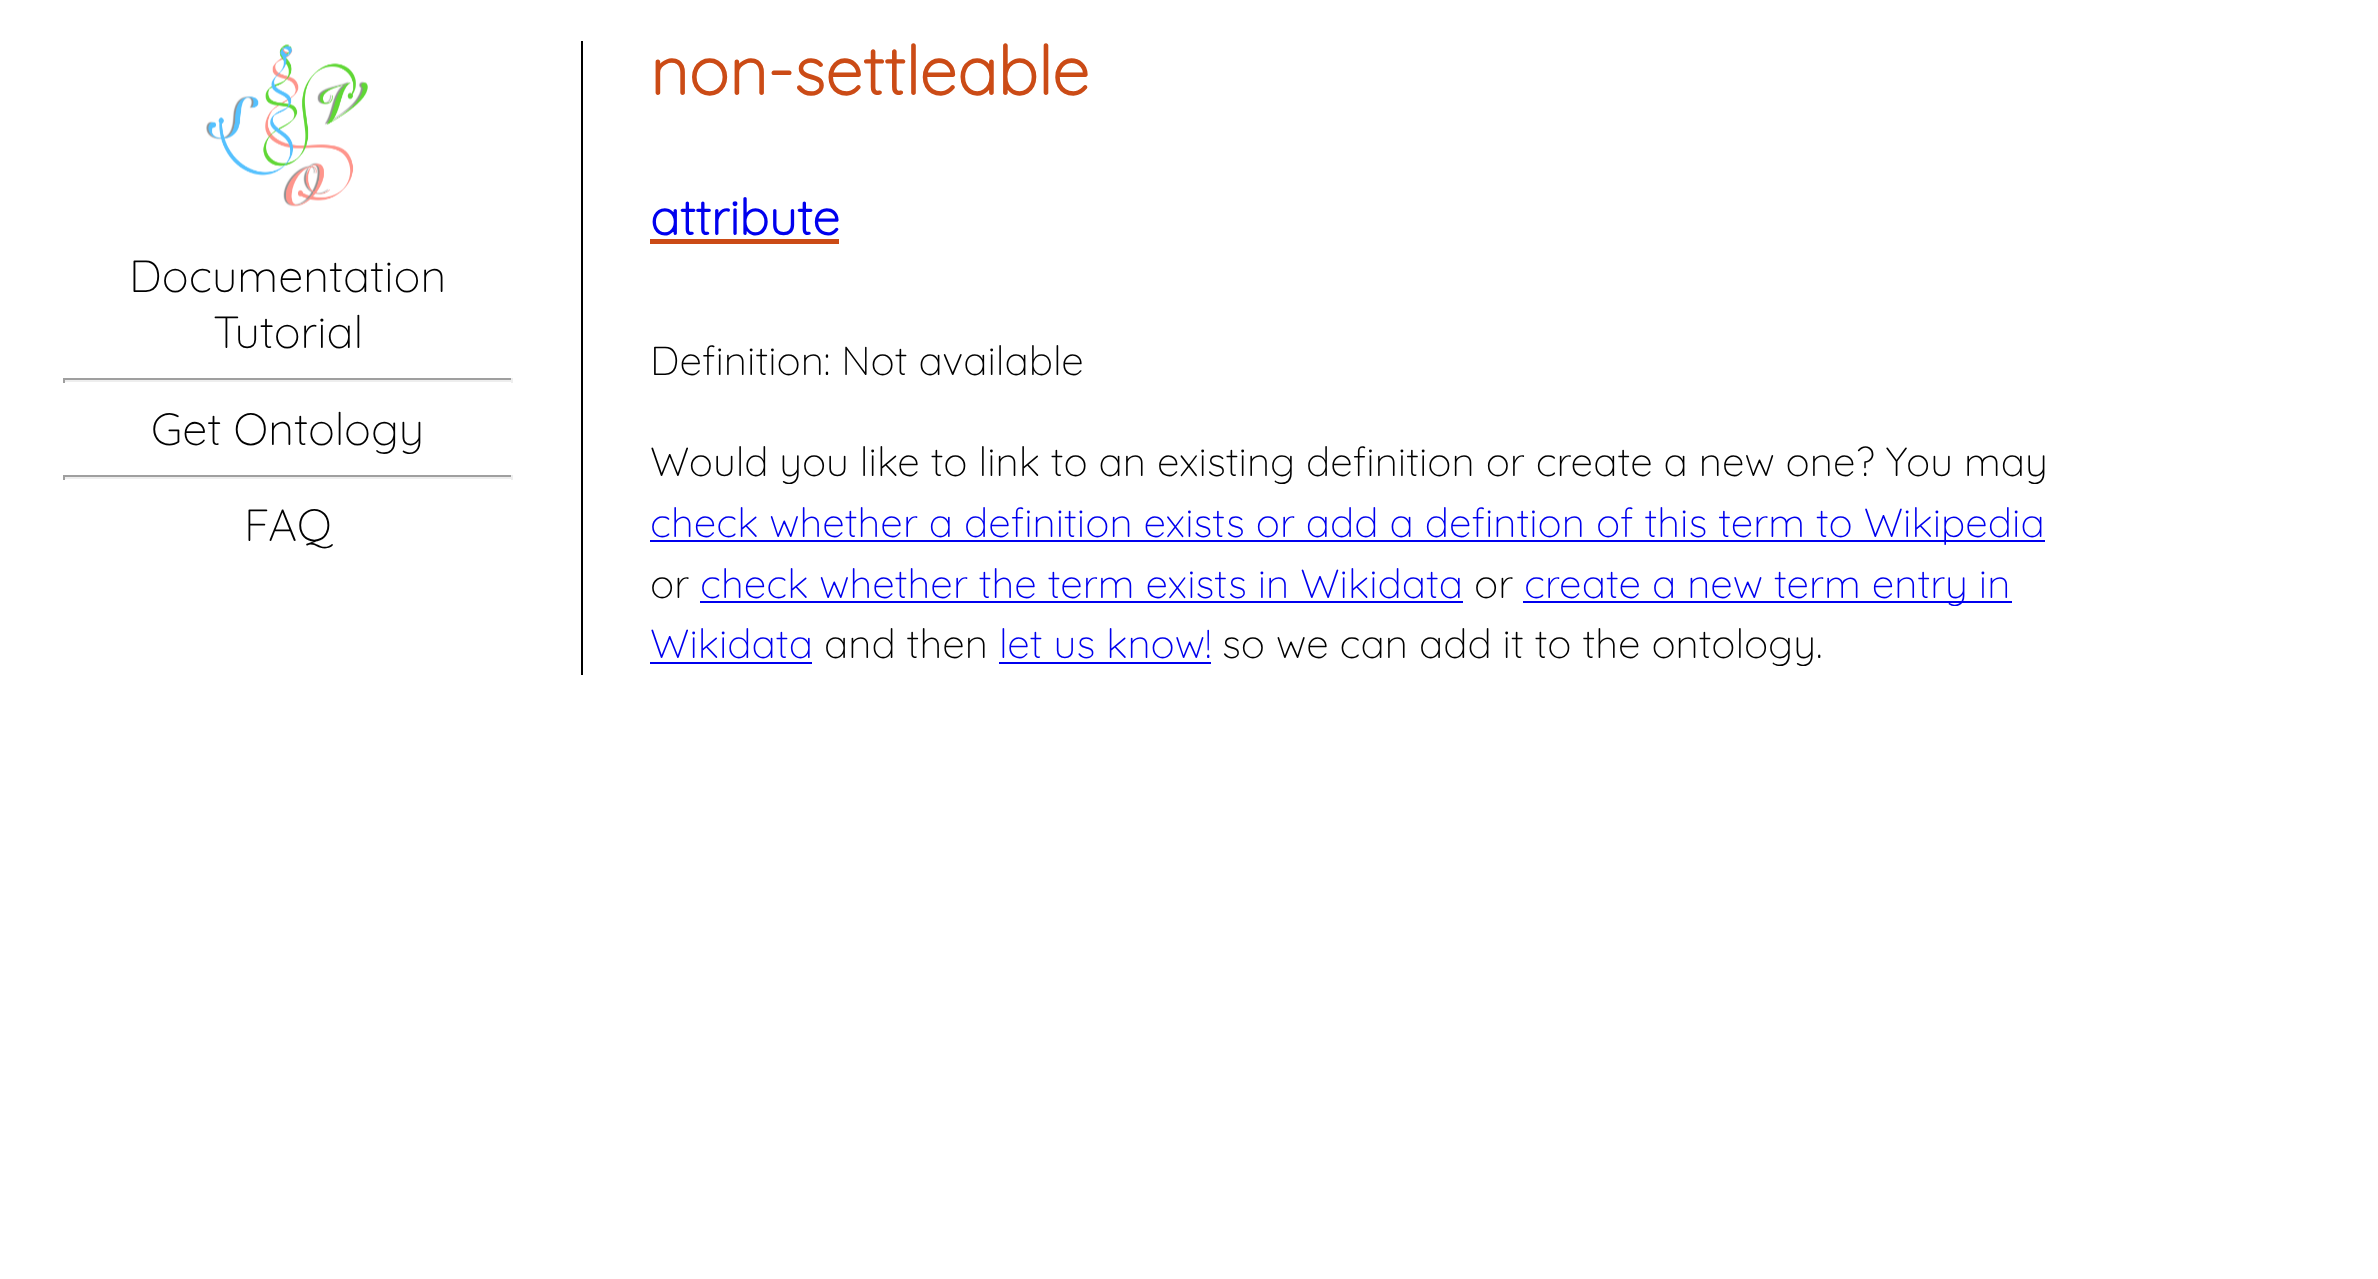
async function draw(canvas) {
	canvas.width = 2378;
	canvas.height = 1279;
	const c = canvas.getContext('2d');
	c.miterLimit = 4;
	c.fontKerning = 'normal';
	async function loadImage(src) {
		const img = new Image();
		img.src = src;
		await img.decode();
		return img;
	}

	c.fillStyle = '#fff';
	c.fillRect(0, 0, 2378, 1279);
	c.drawImage(await loadImage('img1.png'), 206, 44, 162, 163);
	c.font = '300 45px Quicksand';
	c.fillStyle = '#000';
	c.fillText('Documentation', 129, 292);
	c.fillText('Tutorial', 213, 348);
	for (const [x, y, w, h, color] of [
		[63, 378, 450, 2, '#9f9f9f'],
		[511, 378, 2, 5, '#eee'],
		[63, 380, 450, 2, '#eee'],
		[63, 378, 2, 5, '#9f9f9f'],
	]) {
		c.fillStyle = color;
		c.fillRect(x, y, w, h);
	}
	c.fillStyle = '#000';
	c.fillText('Get Ontology', 151, 445);
	for (const [x, y, w, h, color] of [
		[63, 475, 450, 2, '#9f9f9f'],
		[511, 475, 2, 5, '#eee'],
		[63, 477, 450, 2, '#eee'],
		[63, 475, 2, 5, '#9f9f9f'],
	]) {
		c.fillStyle = color;
		c.fillRect(x, y, w, h);
	}
	c.fillStyle = '#000';
	c.fillText('FAQ', 244, 541);
	c.fillRect(581, 41, 2, 634);
	c.font = 'bold 67.5px Quicksand';
	c.fillStyle = '#cb4b16';
	c.fillText('non-settleable', 650, 95);
	c.font = 'bold 49.5px Quicksand';
	c.fillStyle = '#00e';
	c.fillText('attribute', 650, 235);
	c.fillStyle = '#cb4b16';
	c.fillRect(650, 239, 189, 5);
	c.font = '300 40.5px Quicksand';
	c.fillStyle = '#000';
	c.fillText('Definition: Not available', 650, 375);
	c.fillText('Would you like to link to an existing definition or create a new one? You may', 650, 476);
	c.fillStyle = '#00e';
	c.fillRect(650, 540, 1395, 2);
	c.fillText('check whether a definition exists or add a defintion of this term to Wikipedia', 650, 537);
	c.fillStyle = '#000';
	c.fillText('or', 650, 598);
	c.fillStyle = '#00e';
	c.fillText('check whether the term exists in Wikidata', 700, 598);
	c.fillRect(700, 601, 763, 2);
	c.fillStyle = '#000';
	c.fillText('or', 1474, 598);
	c.fillStyle = '#00e';
	c.fillRect(1523, 601, 489, 2);
	c.fillText('create a new term entry in', 1524, 598);
	c.fillText('Wikidata', 650, 658);
	c.fillRect(650, 662, 162, 2);
	c.fillStyle = '#000';
	c.fillText('and then', 824, 658);
	c.fillStyle = '#00e';
	c.fillText('let us know!', 999, 658);
	c.fillRect(999, 662, 212, 2);
	c.fillStyle = '#000';
	c.fillText('so we can add it to the ontology.', 1222, 658);
}

draw(document.querySelector('canvas'));
